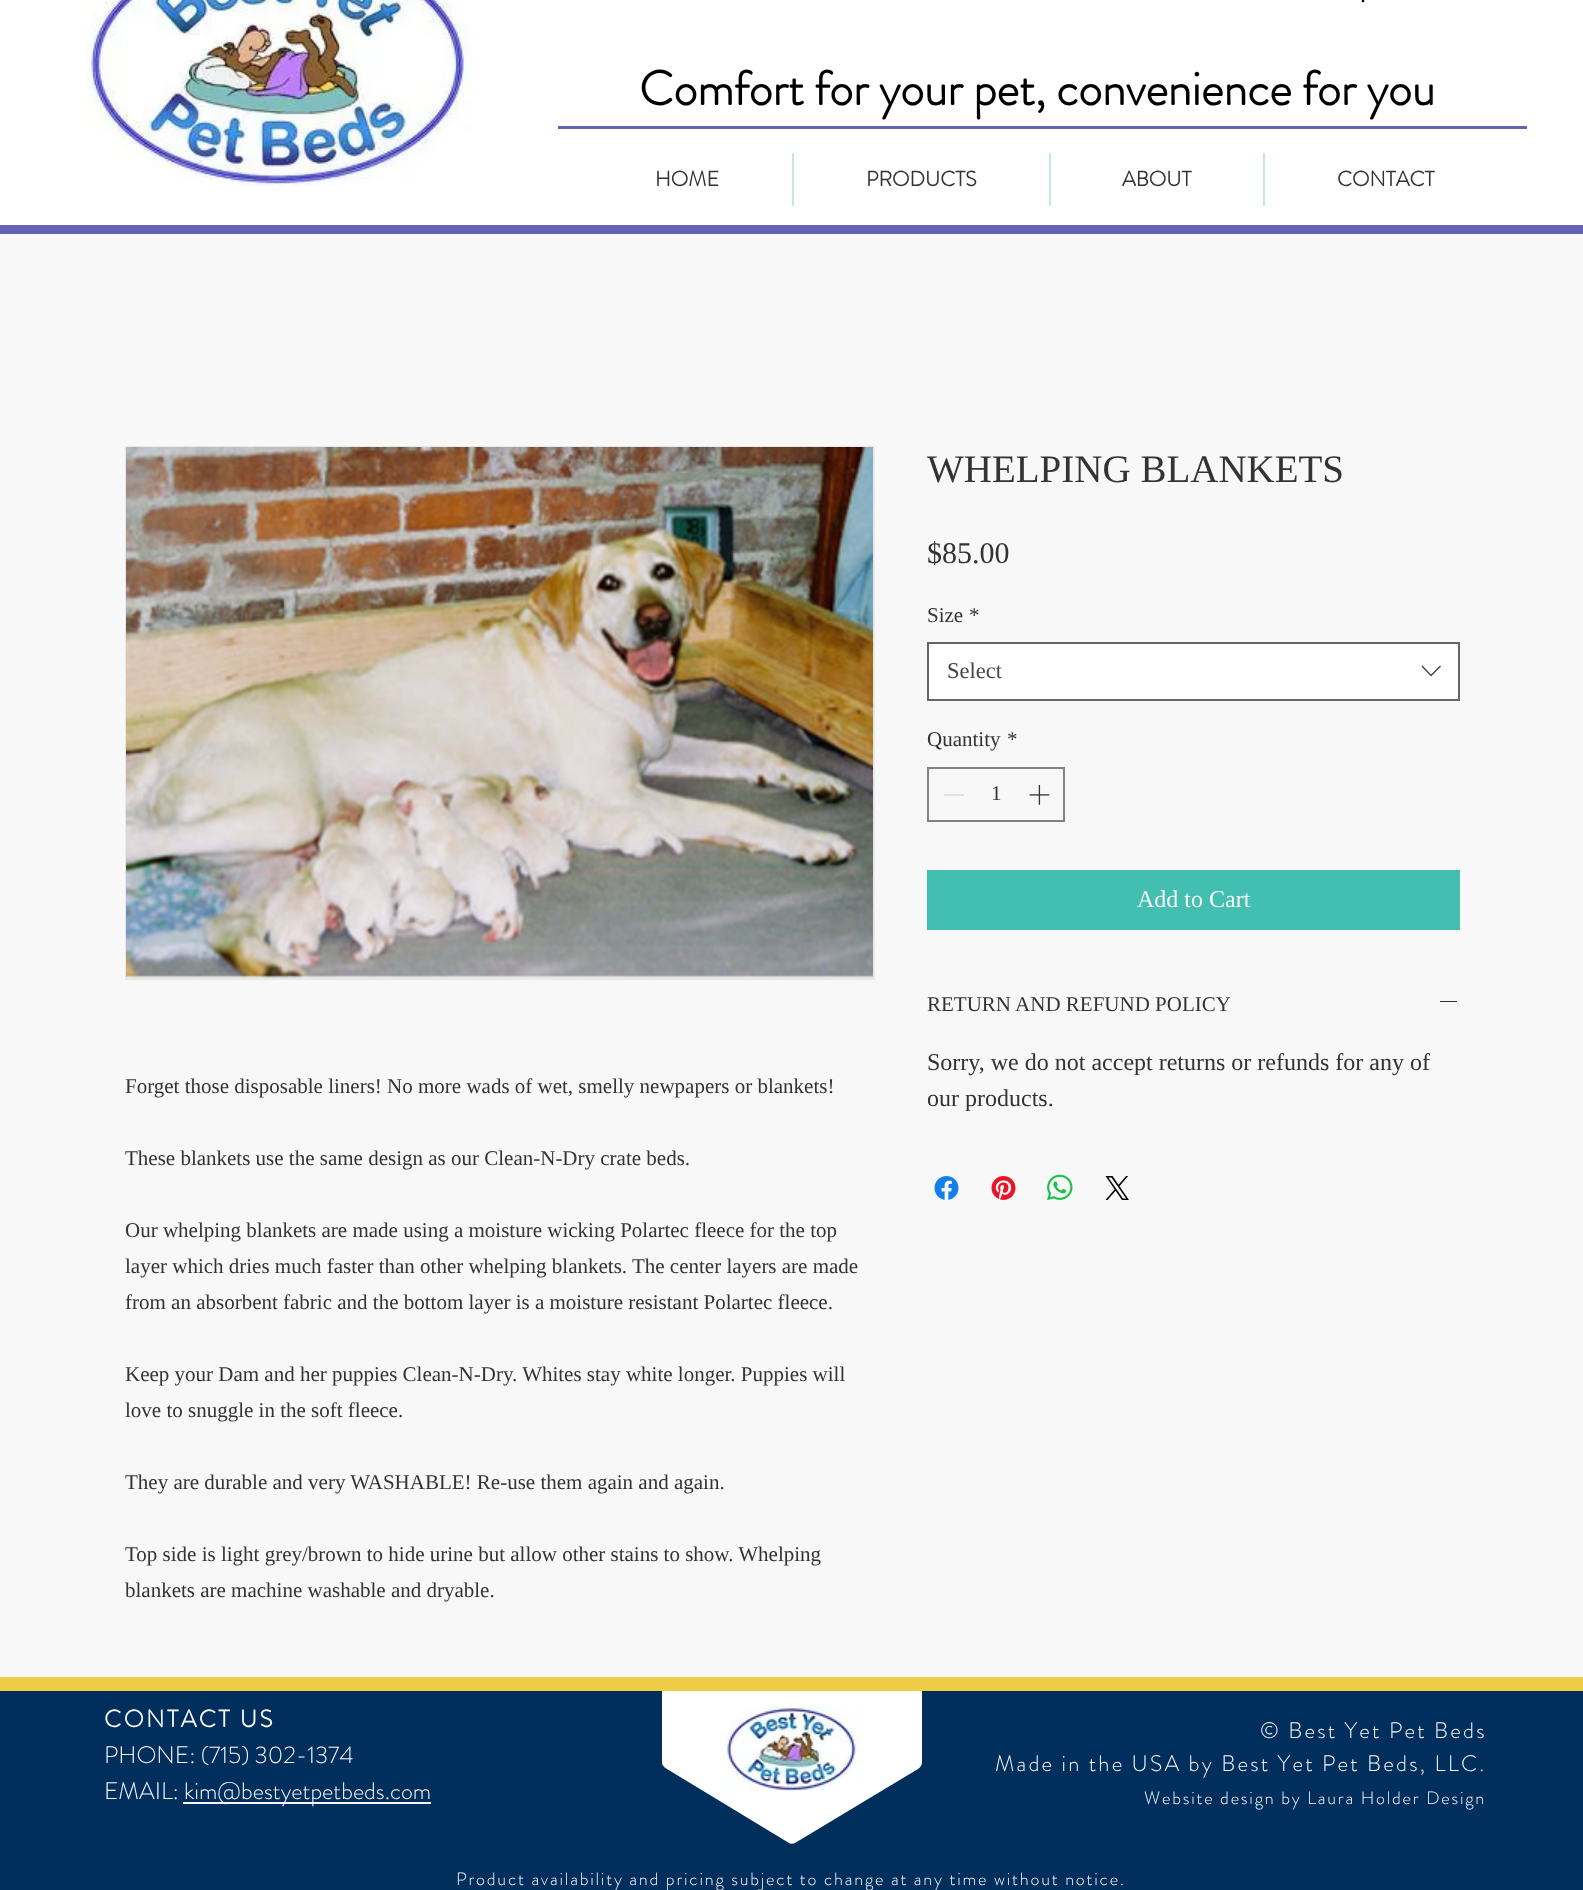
async function draw(canvas) {
	canvas.width = 1583;
	canvas.height = 1890;
	const c = canvas.getContext('2d');
	c.miterLimit = 4;
	c.fontKerning = 'normal';
	async function loadImage(src) {
		const img = new Image();
		img.src = src;
		await img.decode();
		return img;
	}

	c.fillStyle = '#f8f8f8';
	c.fillRect(0, 0, 1583, 1890);
	c.fillStyle = '#fff';
	c.fillRect(0, 0, 1583, 225);
	c.fillStyle = '#6263b3';
	c.fillRect(0, 225, 1583, 9);
	c.drawImage(await loadImage('img1.png'), 85, 0, 387, 186);
	c.font = 'bold 24px "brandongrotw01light"';
	c.fillStyle = '#000';
	c.fillText('.', 1360, 2);
	c.font = 'bold 48px "brandongrotw01light"';
	c.fillText('Comfort for your pet, convenience for you', 639, 105);
	c.fillStyle = '#6263b3';
	c.fillRect(558, 126, 969, 3);
	c.font = 'bold 21px "brandongrotw01light"';
	c.fillStyle = '#333';
	c.fillText('HOME', 655, 186);
	c.fillStyle = '#c1e8e7';
	c.fillRect(792, 153, 2, 53);
	c.fillStyle = '#333';
	c.fillText('PRODUCTS', 866, 186);
	c.fillStyle = '#c1e8e7';
	c.fillRect(1049, 153, 2, 53);
	c.fillStyle = '#333';
	c.fillText('ABOUT', 1122, 186);
	c.fillStyle = '#c1e8e7';
	c.fillRect(1263, 153, 2, 53);
	c.fillStyle = '#333';
	c.fillText('CONTACT', 1337, 186);
	c.font = '39px Liberation Serif';
	c.fillText('WHELPING BLANKETS', 927, 482);
	c.font = '30px Liberation Serif';
	c.fillText('$85.00', 927, 563);
	c.font = '21px Liberation Serif';
	c.fillText('Size', 927, 622);
	c.fillText('*', 969, 622);
	c.fillStyle = '#fff';
	c.beginPath();
	c.rect(928, 643, 531, 57);
	c.fill();
	c.strokeStyle = '#666';
	c.lineWidth = 2;
	c.stroke();
	c.font = '22.5px Liberation Serif';
	c.fillStyle = '#444';
	c.fillText('Select', 947, 678);
	c.beginPath();
	c.moveTo(1440, 665.5);
	c.lineTo(1441, 666.5);
	c.lineTo(1431, 676.5);
	c.lineTo(1421.5, 666.5);
	c.lineTo(1422.5, 665.5);
	c.lineTo(1431, 674.5);
	c.closePath();
	c.fill('evenodd');
	c.font = '21px Liberation Serif';
	c.fillStyle = '#333';
	c.fillText('Quantity', 927, 746);
	c.fillText('*', 1007, 746);
	c.strokeStyle = '#828282';
	c.strokeRect(928, 768, 136, 53);
	c.fillStyle = '#e0e0e0';
	c.fillRect(944, 794, 20, 2);
	c.fillStyle = '#333';
	c.fillText('1', 991, 800);
	c.drawImage(await loadImage('img2.png'), 1029, 785, 21, 20);
	c.fillStyle = '#42bfb0';
	c.fillRect(927, 870, 533, 60);
	c.font = '24px Liberation Serif';
	c.fillStyle = '#f8f8f8';
	c.fillText('Add to Cart', 1137, 907);
	c.font = '21px Liberation Serif';
	c.fillStyle = '#333';
	c.fillText('RETURN AND REFUND POLICY', 927, 1011);
	c.fillRect(1440, 1001, 17, 1);
	c.font = '24px Liberation Serif';
	c.fillText('Sorry, we do not accept returns or refunds for any of', 927, 1070);
	c.fillText('our products.', 927, 1106);
	c.drawImage(await loadImage('img3.png'), 934, 1176, 25, 24);
	c.drawImage(await loadImage('img4.png'), 991, 1176, 25, 24);
	c.drawImage(await loadImage('img5.png'), 1047, 1174, 26, 27);
	c.drawImage(await loadImage('img6.png'), 1105, 1176, 24, 24);
	c.strokeStyle = '#e8e8e8';
	c.strokeRect(126, 447, 748, 532);
	c.drawImage(await loadImage('img7.png'), 126, 447, 747, 531);
	c.font = '21px Liberation Serif';
	c.fillText('Forget those disposable liners! No more wads of wet, smelly newpapers or blankets!', 125, 1093);
	c.save();
	c.beginPath();
	c.rect(125, 1070, 750, 540);
	c.clip();
	c.fillText('These blankets use the same design as our Clean-N-Dry crate beds.', 125, 1165);
	c.restore();
	for (const [text, x, y] of [
		['Our whelping blankets are made using a moisture wicking Polartec fleece for the top', 125, 1237],
		['layer which dries much faster than other whelping blankets. The center layers are made', 125, 1273],
		['from an absorbent fabric and the bottom layer is a moisture resistant Polartec fleece.', 125, 1309],
		['Keep your Dam and her puppies Clean-N-Dry. Whites stay white longer. Puppies will', 125, 1381],
		['love to snuggle in the soft fleece.', 125, 1417],
	]) {
		c.fillText(text, x, y);
	}
	c.save();
	c.beginPath();
	c.rect(125, 1070, 750, 540);
	c.clip();
	c.fillText('They are durable and very WASHABLE! Re-use them again and again.', 125, 1489);
	c.fillText('Top side is light grey/brown to hide urine but allow other stains to show. Whelping', 125, 1561);
	c.restore();
	c.fillText('blankets are machine washable and dryable.', 125, 1597);
	c.fillStyle = '#002e5d';
	c.fillRect(0, 1691, 1583, 199);
	c.fillStyle = '#fff';
	c.beginPath();
	c.moveTo(662, 1685);
	c.bezierCurveTo(662, 1683, 664, 1682, 666, 1682);
	c.lineTo(918, 1682);
	c.bezierCurveTo(920, 1682, 922, 1683, 922, 1685);
	c.lineTo(922, 1763);
	c.bezierCurveTo(922, 1766, 918, 1769, 918, 1769);
	c.lineTo(795, 1843);
	c.bezierCurveTo(793, 1844, 790, 1844, 789, 1843);
	c.lineTo(667, 1769);
	c.bezierCurveTo(667, 1769, 662, 1766, 662, 1763);
	c.closePath();
	c.fill('evenodd');
	c.fillStyle = '#eecc47';
	c.fillRect(0, 1677, 1583, 14);
	c.letterSpacing = '2.4px';
	c.font = 'bold 24px "brandongrotw01light"';
	c.fillStyle = '#f8f8f8';
	c.fillText('CONTACT US', 104, 1727);
	c.letterSpacing = '0px';
	c.font = '300 24px "brandongrotw01light"';
	c.fillText('PHONE: (715) 302-1374', 104, 1763);
	c.fillText('EMAIL:', 104, 1799);
	c.fillRect(183, 1802, 248, 2);
	c.fillText('kim@bestyetpetbeds.com', 184, 1799);
	c.drawImage(await loadImage('img8.png'), 720, 1707, 144, 84);
	c.letterSpacing = '2.25px';
	c.font = '300 22.5px "brandongrotw01light"';
	c.fillText('© Best Yet Pet Beds', 1260, 1738);
	c.fillText('Made in the USA by Best Yet Pet Beds, LLC.', 995, 1771);
	c.letterSpacing = '1.8px';
	c.font = '300 18px "brandongrotw01light"';
	c.fillText('Website design by Laura Holder Design', 1144, 1804);
	c.fillText('Product availability and pricing subject to change at any time without notice.', 456, 1885);
}

draw(document.querySelector('canvas'));
